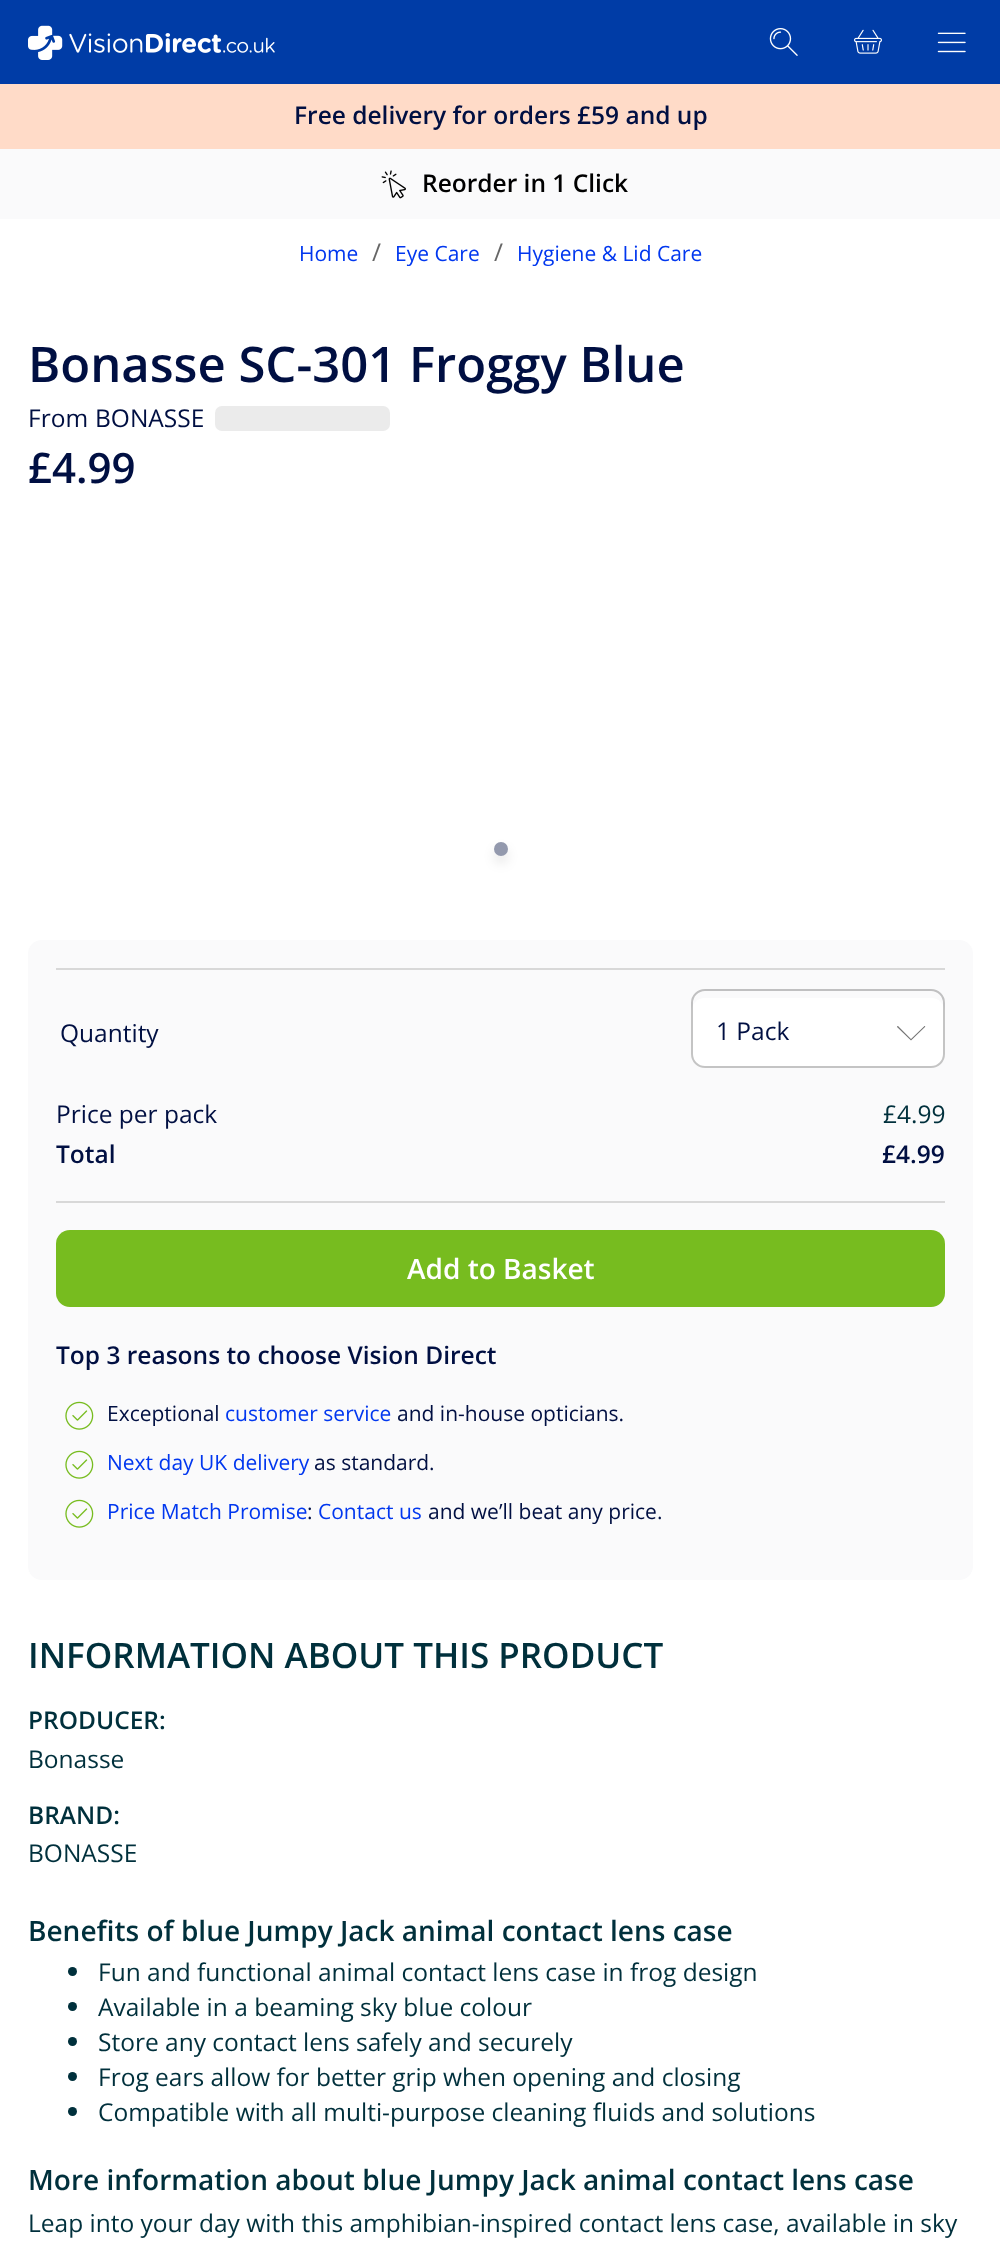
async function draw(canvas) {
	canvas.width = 1000;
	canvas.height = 2244;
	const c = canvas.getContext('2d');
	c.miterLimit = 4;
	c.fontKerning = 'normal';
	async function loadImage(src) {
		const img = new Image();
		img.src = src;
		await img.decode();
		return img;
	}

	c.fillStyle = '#fff';
	c.fillRect(0, 0, 1000, 2244);
	c.fillStyle = '#003ca6';
	c.fillRect(0, 0, 1000, 84);
	c.drawImage(await loadImage('img1.png'), 28, 25, 247, 35);
	c.drawImage(await loadImage('img2.png'), 769, 28, 29, 28);
	c.drawImage(await loadImage('img3.png'), 854, 29, 28, 25);
	c.drawImage(await loadImage('img4.png'), 937, 32, 29, 21);
	c.fillStyle = '#ffdbc8';
	c.fillRect(0, 84, 1000, 65);
	c.font = '600 24.5px Open Sans';
	c.fillStyle = '#000f42';
	c.fillText('Free delivery for orders £59 and up', 294, 124);
	c.fillStyle = '#fafafb';
	c.fillRect(0, 149, 1000, 70);
	c.drawImage(await loadImage('img5.png'), 381, 170, 25, 29);
	c.fillStyle = '#000';
	c.fillText('Reorder in 1 Click', 422, 192);
	c.font = '21px Open Sans';
	c.fillStyle = '#0137ef';
	c.fillText('Home', 299, 261);
	c.font = '24.5px Open Sans';
	c.fillStyle = '#666';
	c.fillText('/', 372, 261);
	c.font = '21px Open Sans';
	c.fillStyle = '#0137ef';
	c.fillText('Eye Care', 395, 261);
	c.font = '24.5px Open Sans';
	c.fillStyle = '#666';
	c.fillText('/', 494, 261);
	c.font = '21px Open Sans';
	c.fillStyle = '#0137ef';
	c.fillText('Hygiene & Lid Care', 517, 261);
	c.font = '600 49px Open Sans';
	c.fillStyle = '#000f42';
	c.fillText('Bonasse SC-301 Froggy Blue', 28, 382);
	c.font = '24.5px Open Sans';
	c.fillText('From', 28, 427);
	c.fillText('BONASSE', 95, 427);
	c.fillStyle = '#ebebeb';
	c.beginPath();
	c.roundRect(215, 406, 175, 25, 7);
	c.fill();
	c.font = '600 42px Open Sans';
	c.fillStyle = '#000f42';
	c.fillText('£4.99', 28, 483);
	c.fillStyle = '#0000001a';
	c.filter = 'blur(6px)';
	c.beginPath();
	c.roundRect(494, 849, 14, 14, 7);
	c.fill();
	c.filter = 'none';
	c.fillStyle = '#9399ad';
	c.beginPath();
	c.arc(501, 849, 7, 0, 2 * Math.PI);
	c.fill();
	c.fillStyle = '#fafafb';
	c.beginPath();
	c.roundRect(28, 940, 945, 640, 14);
	c.fill();
	c.fillStyle = '#d8d8d8';
	c.fillRect(56, 968, 889, 2);
	c.font = '24.5px Open Sans';
	c.fillStyle = '#000f42';
	c.fillText('Quantity', 60, 1042);
	c.fillStyle = '#fff';
	c.beginPath();
	c.roundRect(691, 998, 254, 70, 14);
	c.fill();
	c.fillStyle = '#757575';
	c.beginPath();
	c.moveTo(911, 1040.5);
	c.lineTo(897, 1027);
	c.bezierCurveTo(897, 1026.5, 897.5, 1026, 898, 1026);
	c.lineTo(911, 1039);
	c.lineTo(924.5, 1026);
	c.bezierCurveTo(925, 1026, 925.5, 1026.5, 925, 1027);
	c.closePath();
	c.fill();
	c.beginPath();
	c.roundRect(692, 990, 252, 77, 13);
	c.strokeStyle = '#0000003b';
	c.lineWidth = 2;
	c.stroke();
	c.fillStyle = '#000f42';
	c.fillText('1 Pack', 716, 1040);
	c.fillText('Price per pack', 56, 1123);
	c.fillStyle = '#00303c';
	c.fillText('£4.99', 883, 1123);
	c.font = '600 24.5px Open Sans';
	c.fillStyle = '#000f42';
	c.fillText('Total', 56, 1163);
	c.fillText('£4.99', 882, 1163);
	c.fillStyle = '#d8d8d8';
	c.fillRect(56, 1201, 889, 2);
	c.fillStyle = '#77bc1f';
	c.beginPath();
	c.roundRect(56, 1230, 889, 77, 14);
	c.fill();
	c.font = '600 28px Open Sans';
	c.fillStyle = '#fff';
	c.fillText('Add to Basket', 407, 1279);
	c.font = '600 24.5px Open Sans';
	c.fillStyle = '#000f42';
	c.fillText('Top 3 reasons to choose Vision Direct', 56, 1364);
	c.drawImage(await loadImage('img6.png'), 65, 1401, 29, 29);
	c.font = '21px Open Sans';
	c.fillText('Exceptional', 107, 1421);
	c.fillStyle = '#0137ef';
	c.fillText('customer service', 225, 1421);
	c.fillStyle = '#000f42';
	c.fillText('and in-house opticians.', 397, 1421);
	c.drawImage(await loadImage('img6.png'), 65, 1450, 29, 29);
	c.fillStyle = '#0137ef';
	c.fillText('Next day UK delivery', 107, 1470);
	c.fillStyle = '#000f42';
	c.fillText('as standard.', 314, 1470);
	c.drawImage(await loadImage('img6.png'), 65, 1499, 29, 29);
	c.fillStyle = '#0137ef';
	c.fillText('Price Match Promise', 107, 1519);
	c.fillStyle = '#000f42';
	c.fillText(':', 307, 1519);
	c.fillStyle = '#0137ef';
	c.fillText('Contact us', 318, 1519);
	c.fillStyle = '#000f42';
	c.fillText('and we’ll beat any price.', 428, 1519);
	c.font = '600 35px Open Sans';
	c.fillStyle = '#00303c';
	c.fillText('INFORMATION ABOUT THIS PRODUCT', 28, 1668);
	c.font = '600 24.5px Open Sans';
	c.fillText('PRODUCER:', 28, 1729);
	c.font = '24.5px Open Sans';
	c.fillText('Bonasse', 28, 1768);
	c.font = '600 24.5px Open Sans';
	c.fillText('BRAND:', 28, 1824);
	c.font = '24.5px Open Sans';
	c.fillText('BONASSE', 28, 1862);
	c.font = '600 28px Open Sans';
	c.fillText('Benefits of blue Jumpy Jack animal contact lens case', 28, 1941);
	c.beginPath();
	c.arc(72.5, 1971.5, 4.5, 0, 2 * Math.PI);
	c.fill();
	c.font = '24.5px Open Sans';
	c.fillText('Fun and functional animal contact lens case in frog design', 98, 1981);
	c.beginPath();
	c.arc(72.5, 2006.5, 4.5, 0, 2 * Math.PI);
	c.fill();
	c.fillText('Available in a beaming sky blue colour', 98, 2016);
	c.beginPath();
	c.arc(72.5, 2041.5, 4.5, 0, 2 * Math.PI);
	c.fill();
	c.fillText('Store any contact lens safely and securely', 98, 2051);
	c.beginPath();
	c.arc(72.5, 2076.5, 4.5, 0, 2 * Math.PI);
	c.fill();
	c.fillText('Frog ears allow for better grip when opening and closing', 98, 2086);
	c.beginPath();
	c.arc(72.5, 2111.5, 4.5, 0, 2 * Math.PI);
	c.fill();
	c.fillText('Compatible with all multi-purpose cleaning fluids and solutions', 98, 2121);
	c.font = '600 28px Open Sans';
	c.fillText('More information about blue Jumpy Jack animal contact lens case', 28, 2190);
	c.font = '24.5px Open Sans';
	c.fillText('Leap into your day with this amphibian-inspired contact lens case, available in sky', 28, 2232);
}

draw(document.querySelector('canvas'));
